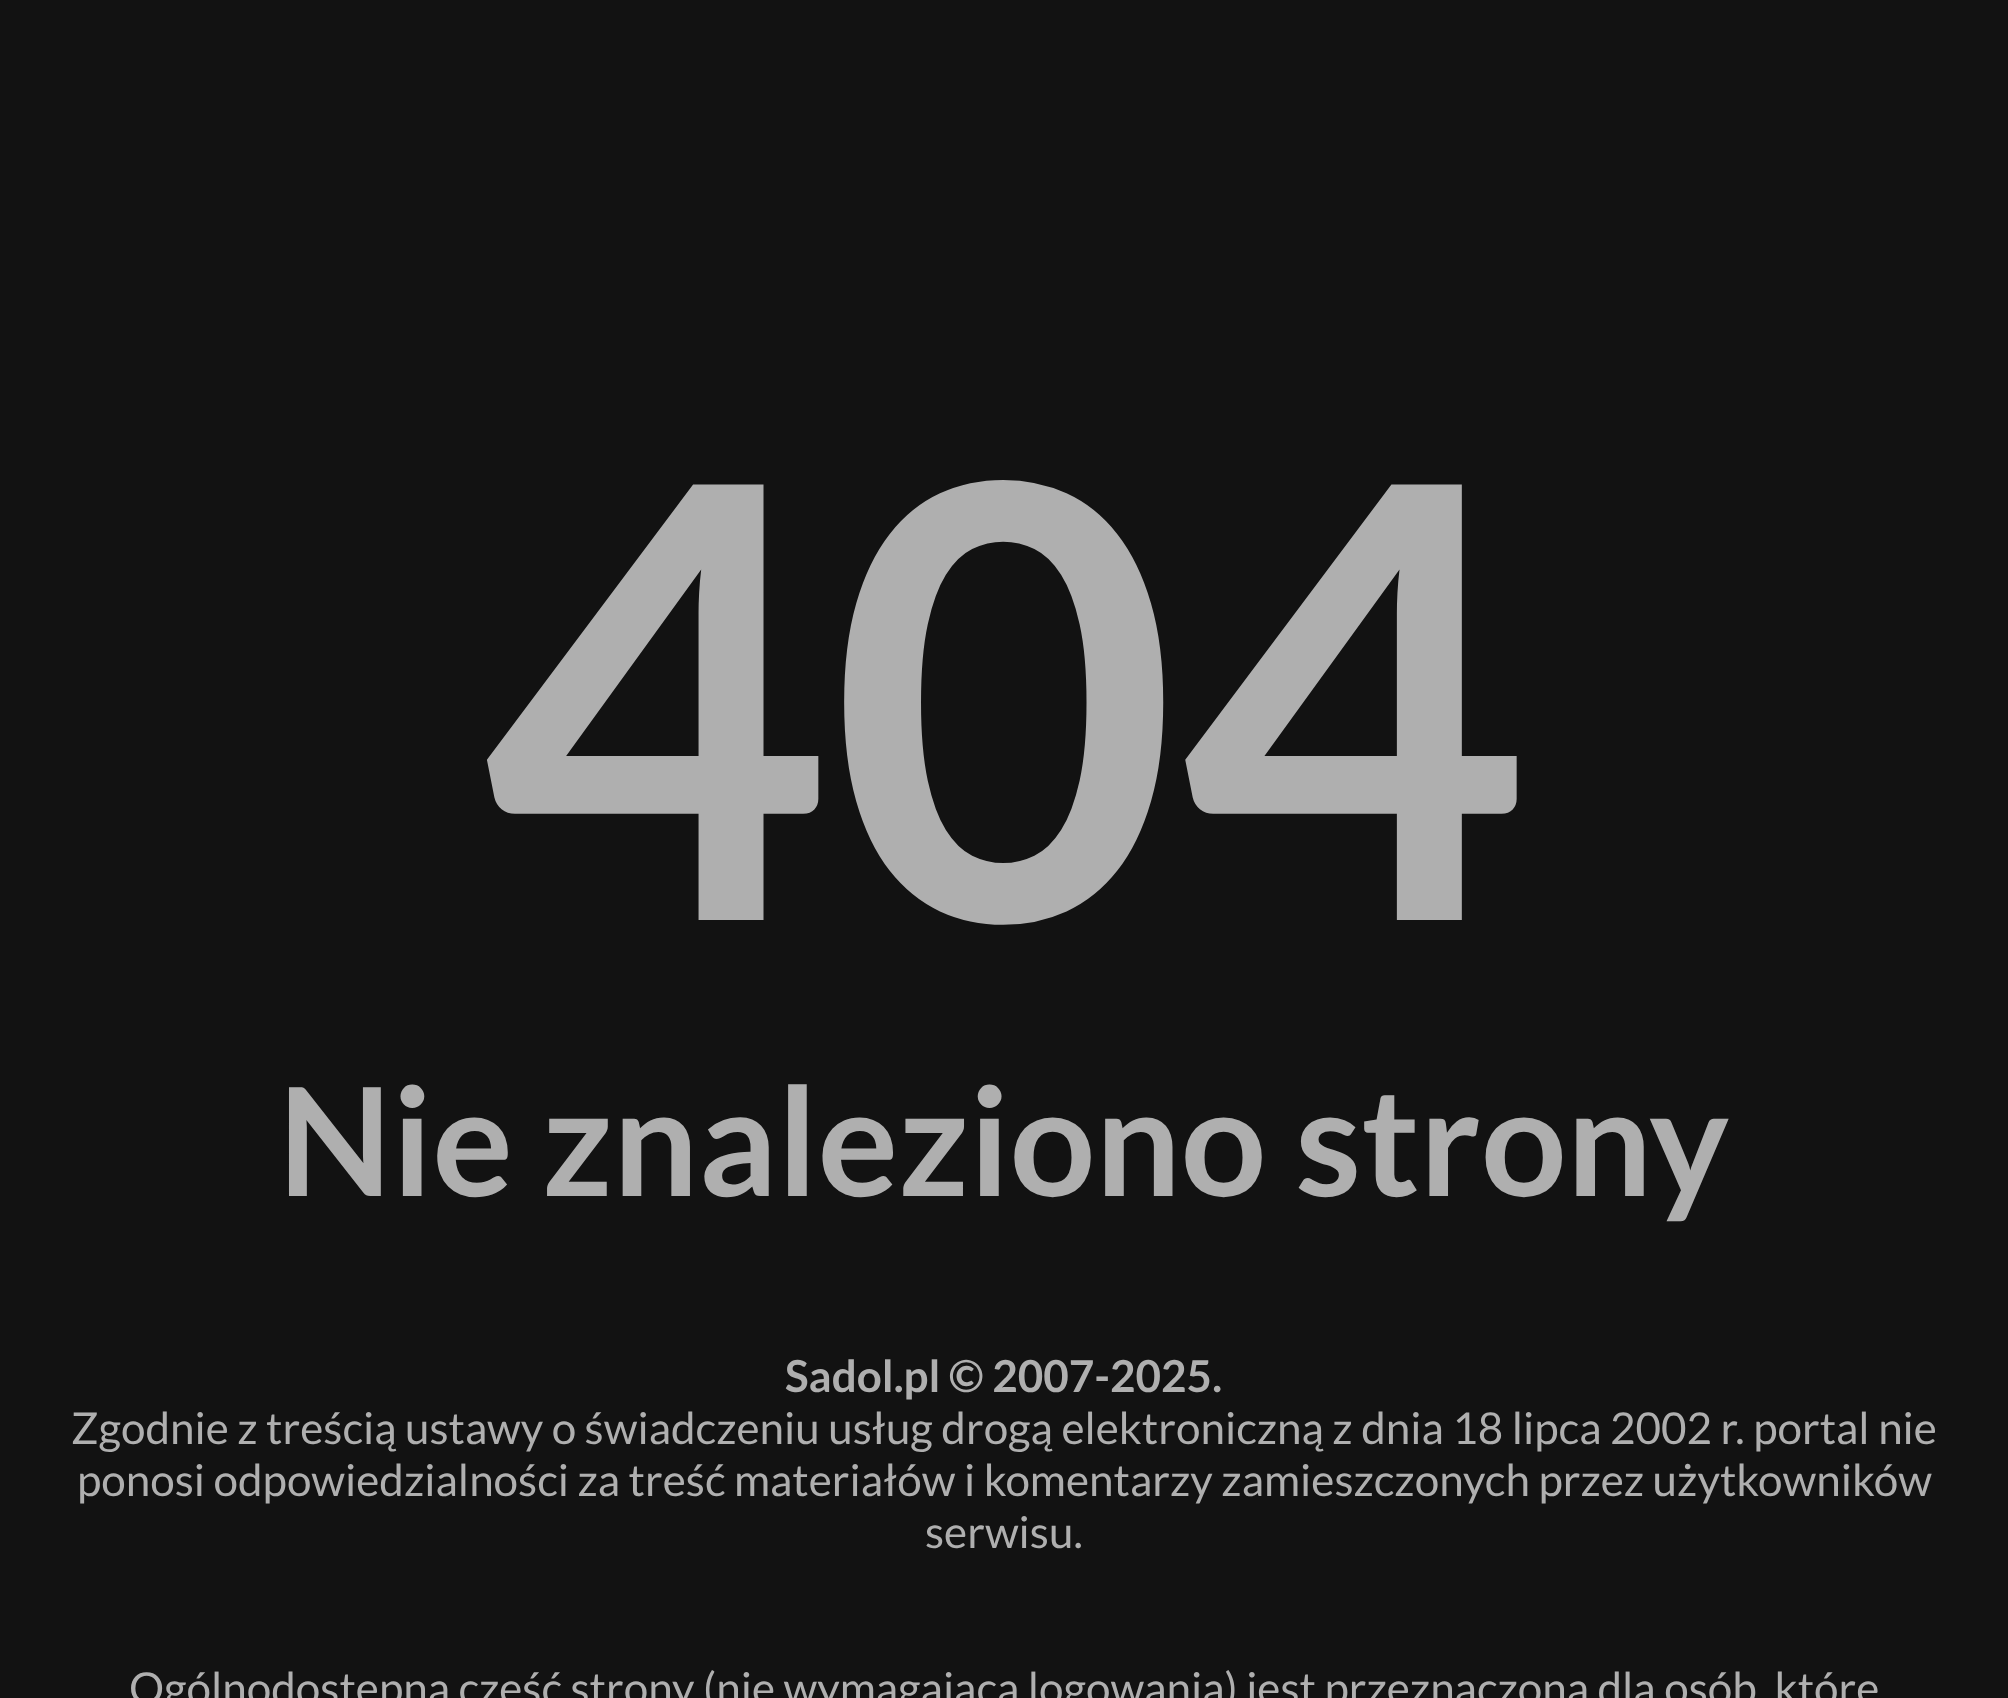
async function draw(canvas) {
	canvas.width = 2008;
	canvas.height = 1698;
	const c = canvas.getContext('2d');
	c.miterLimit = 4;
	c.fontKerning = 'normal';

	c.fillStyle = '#121212';
	c.fillRect(0, 0, 2008, 1698);
	c.font = 'bold 602px Lato';
	c.fillStyle = '#afafaf';
	c.fillText('404', 480, 920);
	c.font = 'bold 150.5px Lato';
	c.fillText('Nie znaleziono strony', 278, 1196);
	c.font = 'bold 44px Lato';
	c.fillText('Sadol.pl © 2007-2025.', 785, 1392);
	c.font = '44px Lato';
	for (const [text, x, y] of [
		['Zgodnie z treścią ustawy o świadczeniu usług drogą elektroniczną z dnia 18 lipca 2002 r. portal nie', 71, 1444],
		['ponosi odpowiedzialności za treść materiałów i komentarzy zamieszczonych przez użytkowników', 77, 1496],
		['serwisu.', 925, 1548],
		['Ogólnodostępna część strony (nie wymagająca logowania) jest przeznaczona dla osób, które', 129, 1704],
	]) {
		c.fillText(text, x, y);
	}
}

draw(document.querySelector('canvas'));
